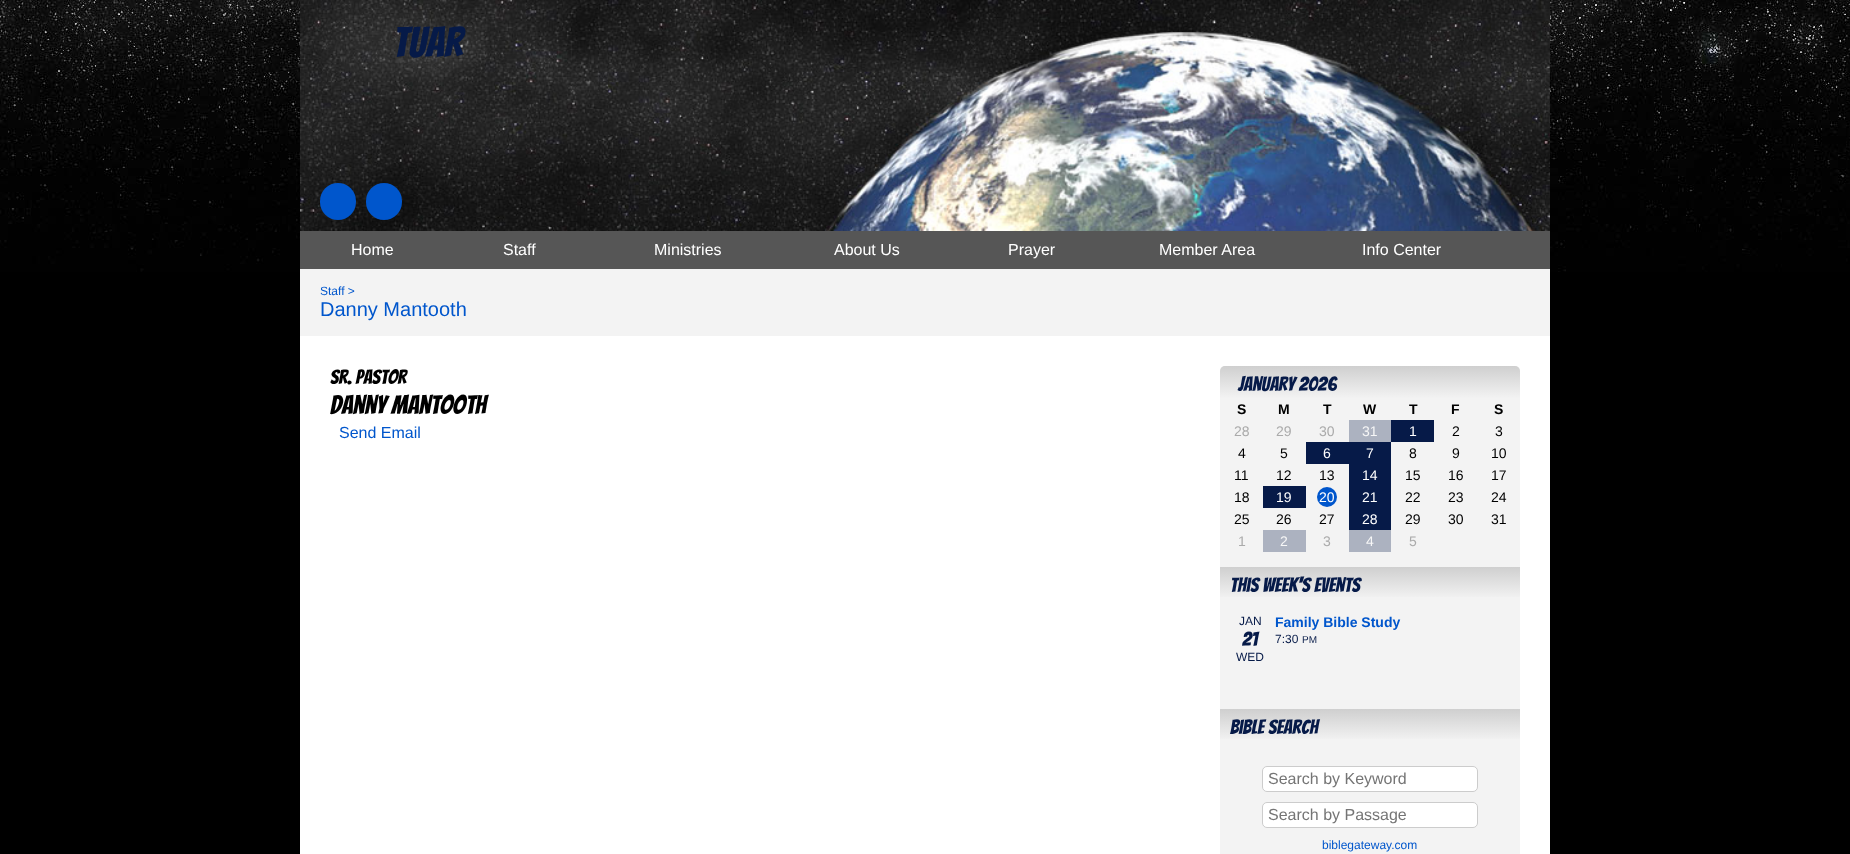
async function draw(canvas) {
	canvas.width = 1850;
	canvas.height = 854;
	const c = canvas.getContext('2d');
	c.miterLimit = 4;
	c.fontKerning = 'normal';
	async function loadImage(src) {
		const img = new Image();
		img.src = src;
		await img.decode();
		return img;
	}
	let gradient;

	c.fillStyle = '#000';
	c.fillRect(0, 0, 1850, 854);
	c.drawImage(await loadImage('img1.png'), 0, 0, 1850, 272);
	c.drawImage(await loadImage('img2.png'), 300, 0, 1250, 231);
	c.font = '42px Bangers';
	c.fillStyle = '#061a48';
	c.fillText('tuar', 393, 57);
	c.fillStyle = '#0056cc';
	c.beginPath();
	c.roundRect(320, 183, 36, 37, 18);
	c.fill();
	c.beginPath();
	c.roundRect(366, 183, 36, 37, 18);
	c.fill();
	c.fillStyle = '#565656';
	c.fillRect(300, 231, 1250, 38);
	c.font = '16px Liberation Sans';
	c.fillStyle = '#fff';
	for (const [text, x, y] of [
		['Home', 351, 255],
		['Staff', 503, 255],
		['Ministries', 654, 255],
		['About Us', 834, 255],
		['Prayer', 1008, 255],
		['Member Area', 1159, 255],
		['Info Center', 1362, 255],
	]) {
		c.fillText(text, x, y);
	}
	c.fillRect(300, 336, 1250, 518);
	c.fillStyle = '#f3f3f3';
	c.fillRect(300, 269, 1250, 67);
	c.font = '12px Liberation Sans';
	c.fillStyle = '#0056cc';
	c.fillText('Staff >', 320, 295);
	c.font = '20px Liberation Sans';
	c.fillText('Danny Mantooth', 320, 316);
	c.font = '20px Bangers';
	c.fillStyle = '#000';
	c.fillText('Sr. Pastor', 330, 384);
	c.font = '26px Bangers';
	c.fillText('Danny Mantooth', 330, 414);
	c.font = '16px Liberation Sans';
	c.fillStyle = '#0056cc';
	c.fillText('Send Email', 339, 438);
	c.fillStyle = '#f3f3f3';
	c.beginPath();
	c.roundRect(1220, 366, 300, 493, 5);
	c.fill();
	gradient = c.createLinearGradient(1370, 366, 1370, 398);
	gradient.addColorStop(0, '#cfcfcf');
	gradient.addColorStop(1, '#cfcfcf03');
	c.fillStyle = gradient;
	c.beginPath();
	c.roundRect(1220, 366, 300, 32, [5, 5, 0, 0]);
	c.fill();
	c.font = '20px Bangers';
	c.fillStyle = '#061a48';
	c.fillText('January 2026', 1238, 391);
	c.font = 'bold 14px Liberation Sans';
	c.fillStyle = '#000';
	for (const [text, x, y] of [
		['S', 1237, 414],
		['M', 1278, 414],
		['T', 1323, 414],
		['W', 1363, 414],
		['T', 1409, 414],
		['F', 1451, 414],
		['S', 1494, 414],
	]) {
		c.fillText(text, x, y);
	}
	c.font = '14px Liberation Sans';
	c.fillStyle = '#aaa';
	for (const [text, x, y] of [
		['28', 1234, 436],
		['29', 1276, 436],
		['30', 1319, 436],
	]) {
		c.fillText(text, x, y);
	}
	c.fillStyle = '#acb2c0';
	c.fillRect(1349, 420, 42, 22);
	c.fillStyle = '#f7f7f7';
	c.fillText('31', 1362, 436);
	c.fillStyle = '#061a48';
	c.fillRect(1391, 420, 43, 22);
	c.fillStyle = '#fff';
	c.fillText('1', 1409, 436);
	c.fillStyle = '#000';
	for (const [text, x, y] of [
		['2', 1452, 436],
		['3', 1495, 436],
		['4', 1238, 458],
		['5', 1280, 458],
	]) {
		c.fillText(text, x, y);
	}
	c.fillStyle = '#061a48';
	c.fillRect(1306, 442, 85, 22);
	c.fillStyle = '#fff';
	c.fillText('6', 1323, 458);
	c.fillText('7', 1366, 458);
	c.fillStyle = '#000';
	for (const [text, x, y] of [
		['8', 1409, 458],
		['9', 1452, 458],
		['10', 1491, 458],
		['11', 1234, 480],
		['12', 1276, 480],
		['13', 1319, 480],
	]) {
		c.fillText(text, x, y);
	}
	c.fillStyle = '#061a48';
	c.fillRect(1349, 464, 42, 66);
	c.fillStyle = '#fff';
	c.fillText('14', 1362, 480);
	c.fillStyle = '#000';
	for (const [text, x, y] of [
		['15', 1405, 480],
		['16', 1448, 480],
		['17', 1491, 480],
		['18', 1234, 502],
	]) {
		c.fillText(text, x, y);
	}
	c.fillStyle = '#061a48';
	c.fillRect(1263, 486, 43, 22);
	c.fillStyle = '#fff';
	c.fillText('19', 1276, 502);
	c.fillStyle = '#0056cc';
	c.beginPath();
	c.arc(1327, 497, 10, 0, 2 * Math.PI);
	c.fill();
	c.fillStyle = '#fff';
	c.fillText('20', 1319, 502);
	c.fillText('21', 1362, 502);
	c.fillStyle = '#000';
	for (const [text, x, y] of [
		['22', 1405, 502],
		['23', 1448, 502],
		['24', 1491, 502],
		['25', 1234, 524],
		['26', 1276, 524],
		['27', 1319, 524],
	]) {
		c.fillText(text, x, y);
	}
	c.fillStyle = '#fff';
	c.fillText('28', 1362, 524);
	c.fillStyle = '#000';
	for (const [text, x, y] of [
		['29', 1405, 524],
		['30', 1448, 524],
		['31', 1491, 524],
	]) {
		c.fillText(text, x, y);
	}
	c.fillStyle = '#aaa';
	c.fillText('1', 1238, 546);
	c.fillStyle = '#acb2c0';
	c.fillRect(1263, 530, 43, 22);
	c.fillStyle = '#f7f7f7';
	c.fillText('2', 1280, 546);
	c.fillStyle = '#aaa';
	c.fillText('3', 1323, 546);
	c.fillStyle = '#acb2c0';
	c.fillRect(1349, 530, 42, 22);
	c.fillStyle = '#f7f7f7';
	c.fillText('4', 1366, 546);
	c.fillStyle = '#aaa';
	c.fillText('5', 1409, 546);
	gradient = c.createLinearGradient(1370, 567, 1370, 599);
	gradient.addColorStop(0, '#cfcfcf');
	gradient.addColorStop(1, '#f3f3f3');
	c.fillStyle = gradient;
	c.fillRect(1220, 567, 300, 30);
	c.font = '20px Bangers';
	c.fillStyle = '#061a48';
	c.fillText('This Week\'s Events', 1230, 592);
	c.font = '12px Liberation Sans';
	c.fillText('JAN', 1239, 625);
	c.font = '20px Bangers';
	c.fillText('21', 1242, 646);
	c.font = '12px Liberation Sans';
	c.fillText('WED', 1236, 661);
	c.font = 'bold 14px Liberation Sans';
	c.fillStyle = '#0056cc';
	c.fillText('Family Bible Study', 1275, 627);
	c.font = '12px Liberation Sans';
	c.fillStyle = '#061a48';
	c.fillText('7:30', 1275, 643);
	c.font = '10px Liberation Sans';
	c.fillText('PM', 1302, 643);
	gradient = c.createLinearGradient(1370, 709, 1370, 741);
	gradient.addColorStop(0, '#cfcfcf');
	gradient.addColorStop(1, '#f3f3f3');
	c.fillStyle = gradient;
	c.fillRect(1220, 709, 300, 30);
	c.font = '20px Bangers';
	c.fillStyle = '#061a48';
	c.fillText('Bible Search', 1230, 734);
	c.fillStyle = '#fff';
	c.beginPath();
	c.roundRect(1262.5, 766.5, 215, 25, 4.5);
	c.fill();
	c.strokeStyle = '#ccc';
	c.stroke();
	c.font = '16px Liberation Sans';
	c.fillStyle = '#757575';
	c.fillText('Search by Keyword', 1268, 784);
	c.fillStyle = '#fff';
	c.beginPath();
	c.roundRect(1262.5, 802.5, 215, 25, 4.5);
	c.fill();
	c.stroke();
	c.fillStyle = '#757575';
	c.fillText('Search by Passage', 1268, 820);
	c.font = '12px Liberation Sans';
	c.fillStyle = '#0056cc';
	c.fillText('biblegateway.com', 1322, 849);
}

draw(document.querySelector('canvas'));
